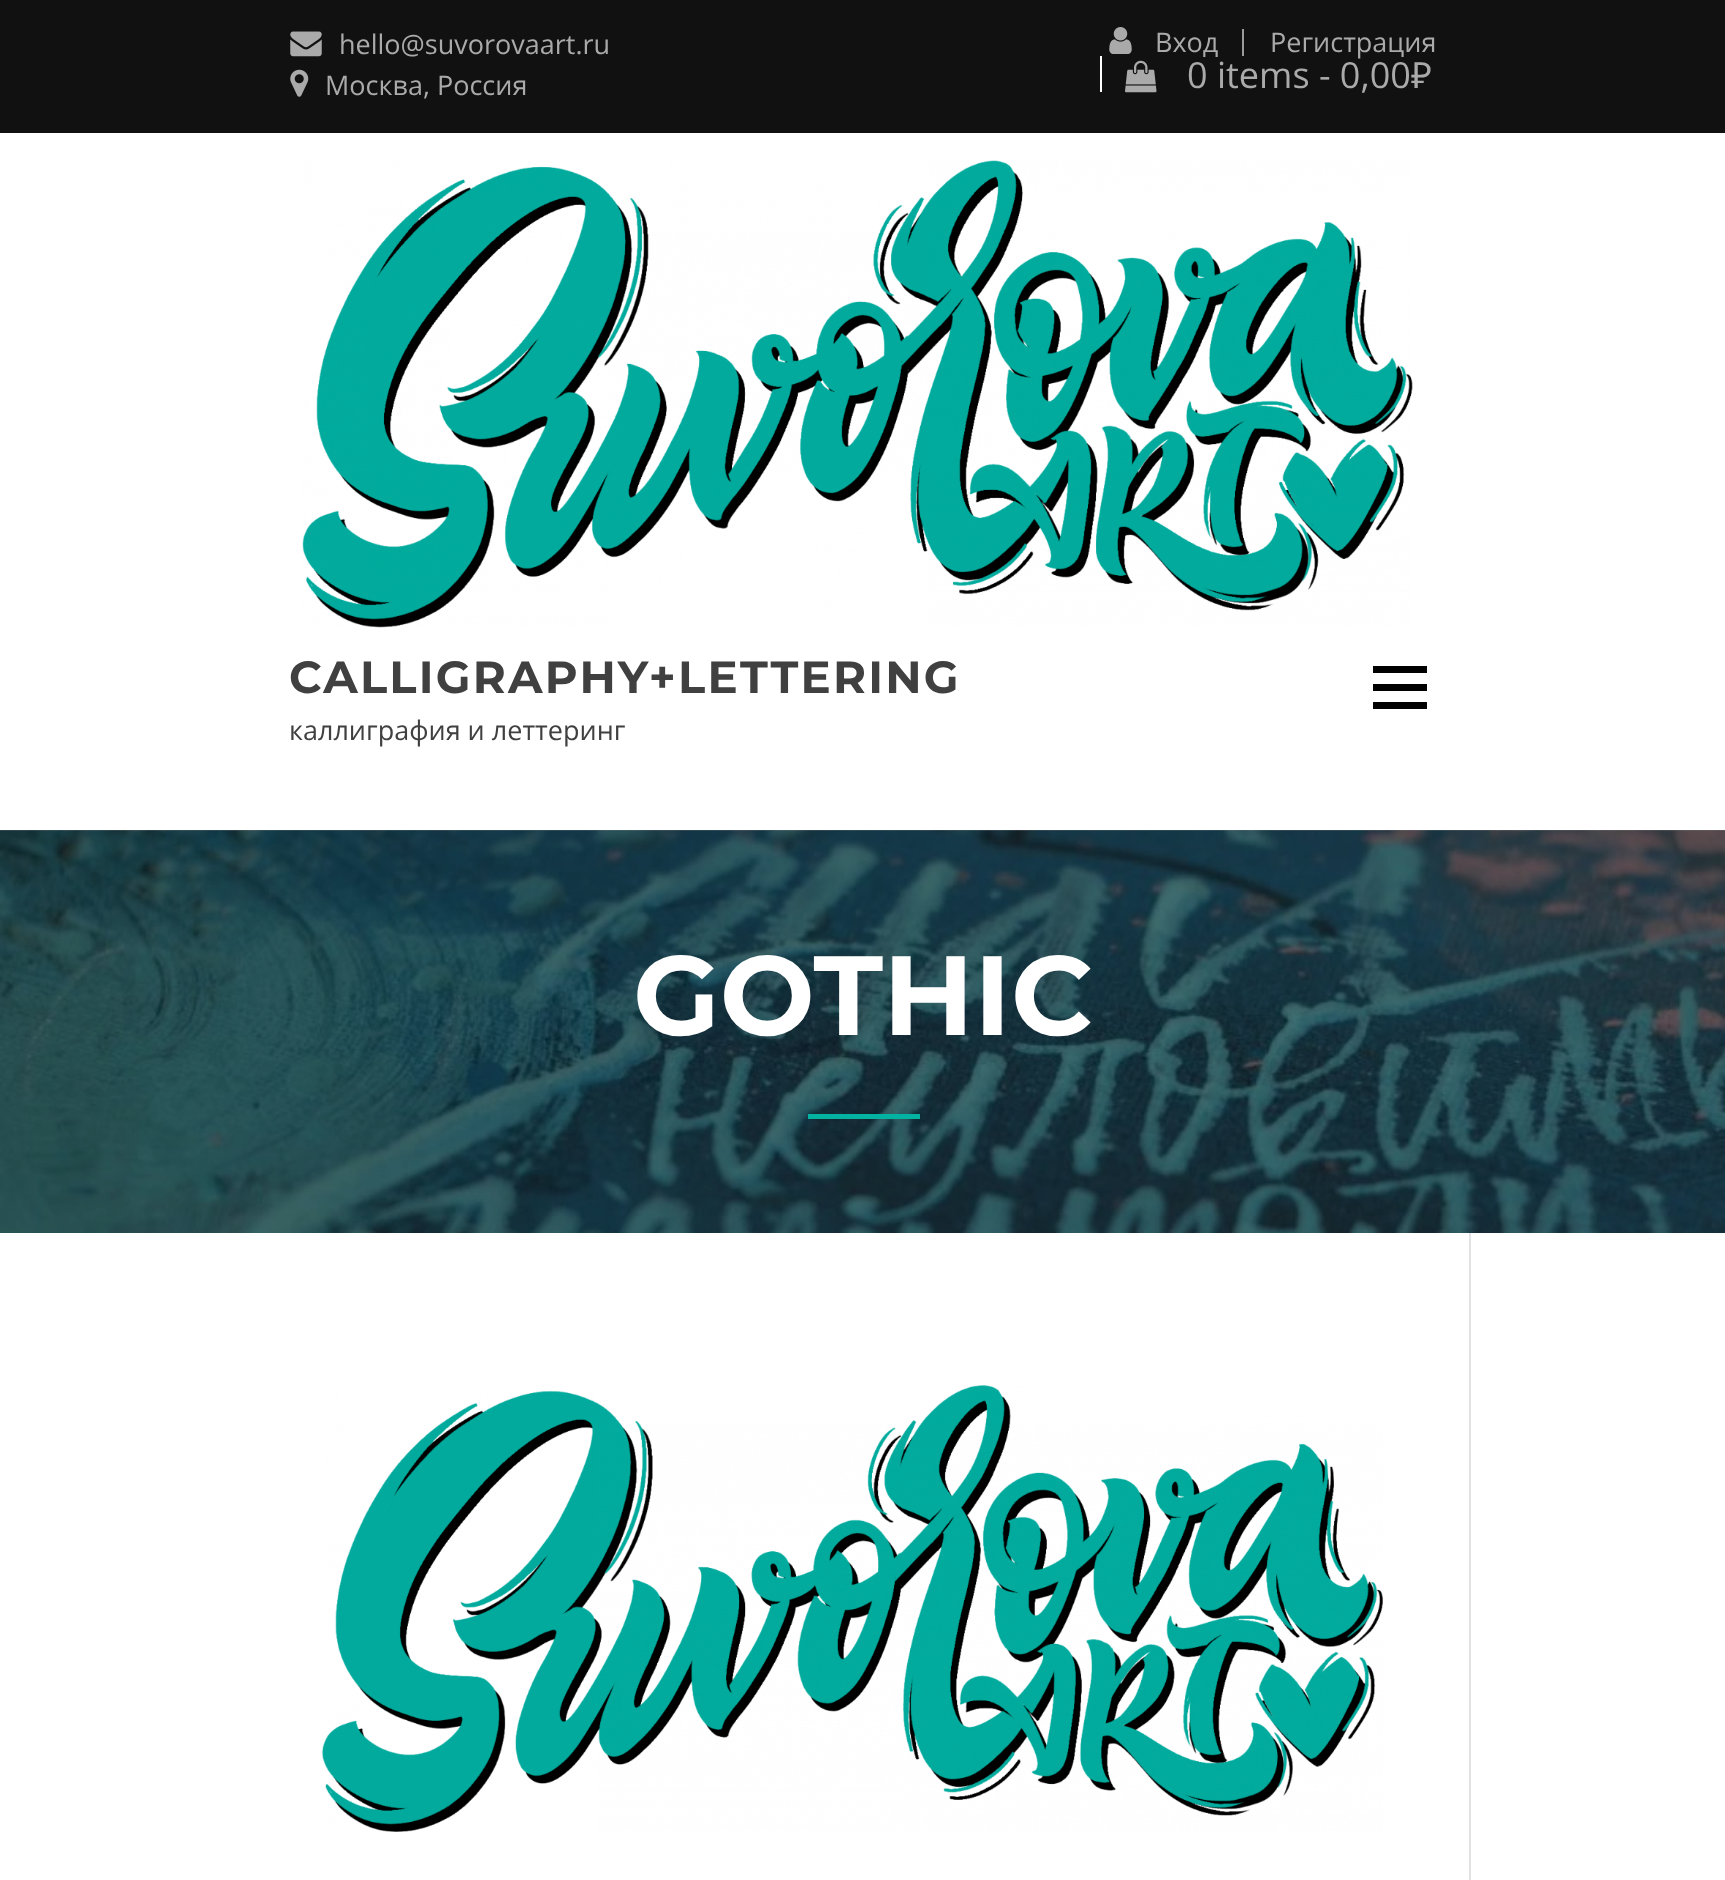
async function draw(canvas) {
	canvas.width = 1725;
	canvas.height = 1880;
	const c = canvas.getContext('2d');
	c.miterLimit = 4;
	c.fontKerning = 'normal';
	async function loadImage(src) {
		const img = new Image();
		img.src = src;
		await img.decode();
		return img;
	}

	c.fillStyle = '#fff';
	c.fillRect(0, 0, 1725, 1880);
	c.save();
	c.beginPath();
	c.rect(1, 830, 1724, 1);
	c.clip();
	c.fillStyle = '#3232320f';
	c.filter = 'blur(11px)';
	c.beginPath();
	c.rect(0, 144, 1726, 698);
	c.fill();
	c.filter = 'none';
	c.restore();
	c.fillStyle = '#111';
	c.fillRect(0, 0, 1725, 133);
	c.drawImage(await loadImage('img1.png'), 290, 31, 32, 26);
	c.font = '27px Open Sans';
	c.fillStyle = '#aaa';
	c.fillText('hello@suvorovaart.ru', 339, 54);
	c.drawImage(await loadImage('img2.png'), 290, 69, 19, 28);
	c.fillText('Москва, Россия', 325, 95);
	c.drawImage(await loadImage('img3.png'), 1109, 27, 23, 27);
	c.fillText('Вход', 1155, 52);
	c.fillStyle = '#9a9a9a';
	c.fillRect(1242, 29, 2, 27);
	c.fillStyle = '#aaa';
	c.fillText('Регистрация', 1270, 52);
	c.fillStyle = '#fff';
	c.fillRect(1100, 56, 2, 36);
	c.drawImage(await loadImage('img4.png'), 1125, 60, 32, 33);
	c.font = '36px Open Sans';
	c.fillStyle = '#aaa';
	c.fillText('0 items - 0,00', 1187, 88);
	c.font = '36px Noto Sans';
	c.fillText('₽', 1411, 88);
	c.drawImage(await loadImage('img5.png'), 302, 160, 1111, 468);
	c.letterSpacing = '2.25px';
	c.font = 'bold 45px Montserrat';
	c.fillStyle = '#404040';
	c.fillText('CALLIGRAPHY+LETTERING', 289, 693);
	c.letterSpacing = '0px';
	c.font = '27px Open Sans';
	c.fillText('каллиграфия и леттеринг', 289, 740);
	for (const [x, y, w, h, color] of [
		[1373, 684, 54, 7, '#000'],
		[1373, 666, 54, 7, '#000'],
		[1373, 702, 54, 7, '#000'],
	]) {
		c.fillStyle = color;
		c.fillRect(x, y, w, h);
	}
	c.drawImage(await loadImage('img6.png'), 0, 830, 1725, 403);
	c.fillStyle = '#00000080';
	c.fillRect(0, 830, 1725, 403);
	c.font = 'bold 112.5px Montserrat';
	c.fillStyle = '#fff';
	c.fillText('GOTHIC', 633, 1035);
	c.fillStyle = '#03b2a1';
	c.fillRect(808, 1114, 112, 5);
	c.fillStyle = '#e1e2e4';
	c.fillRect(1469, 1233, 2, 647);
	c.drawImage(await loadImage('img7.png'), 321, 1385, 1062, 447);
}

draw(document.querySelector('canvas'));
